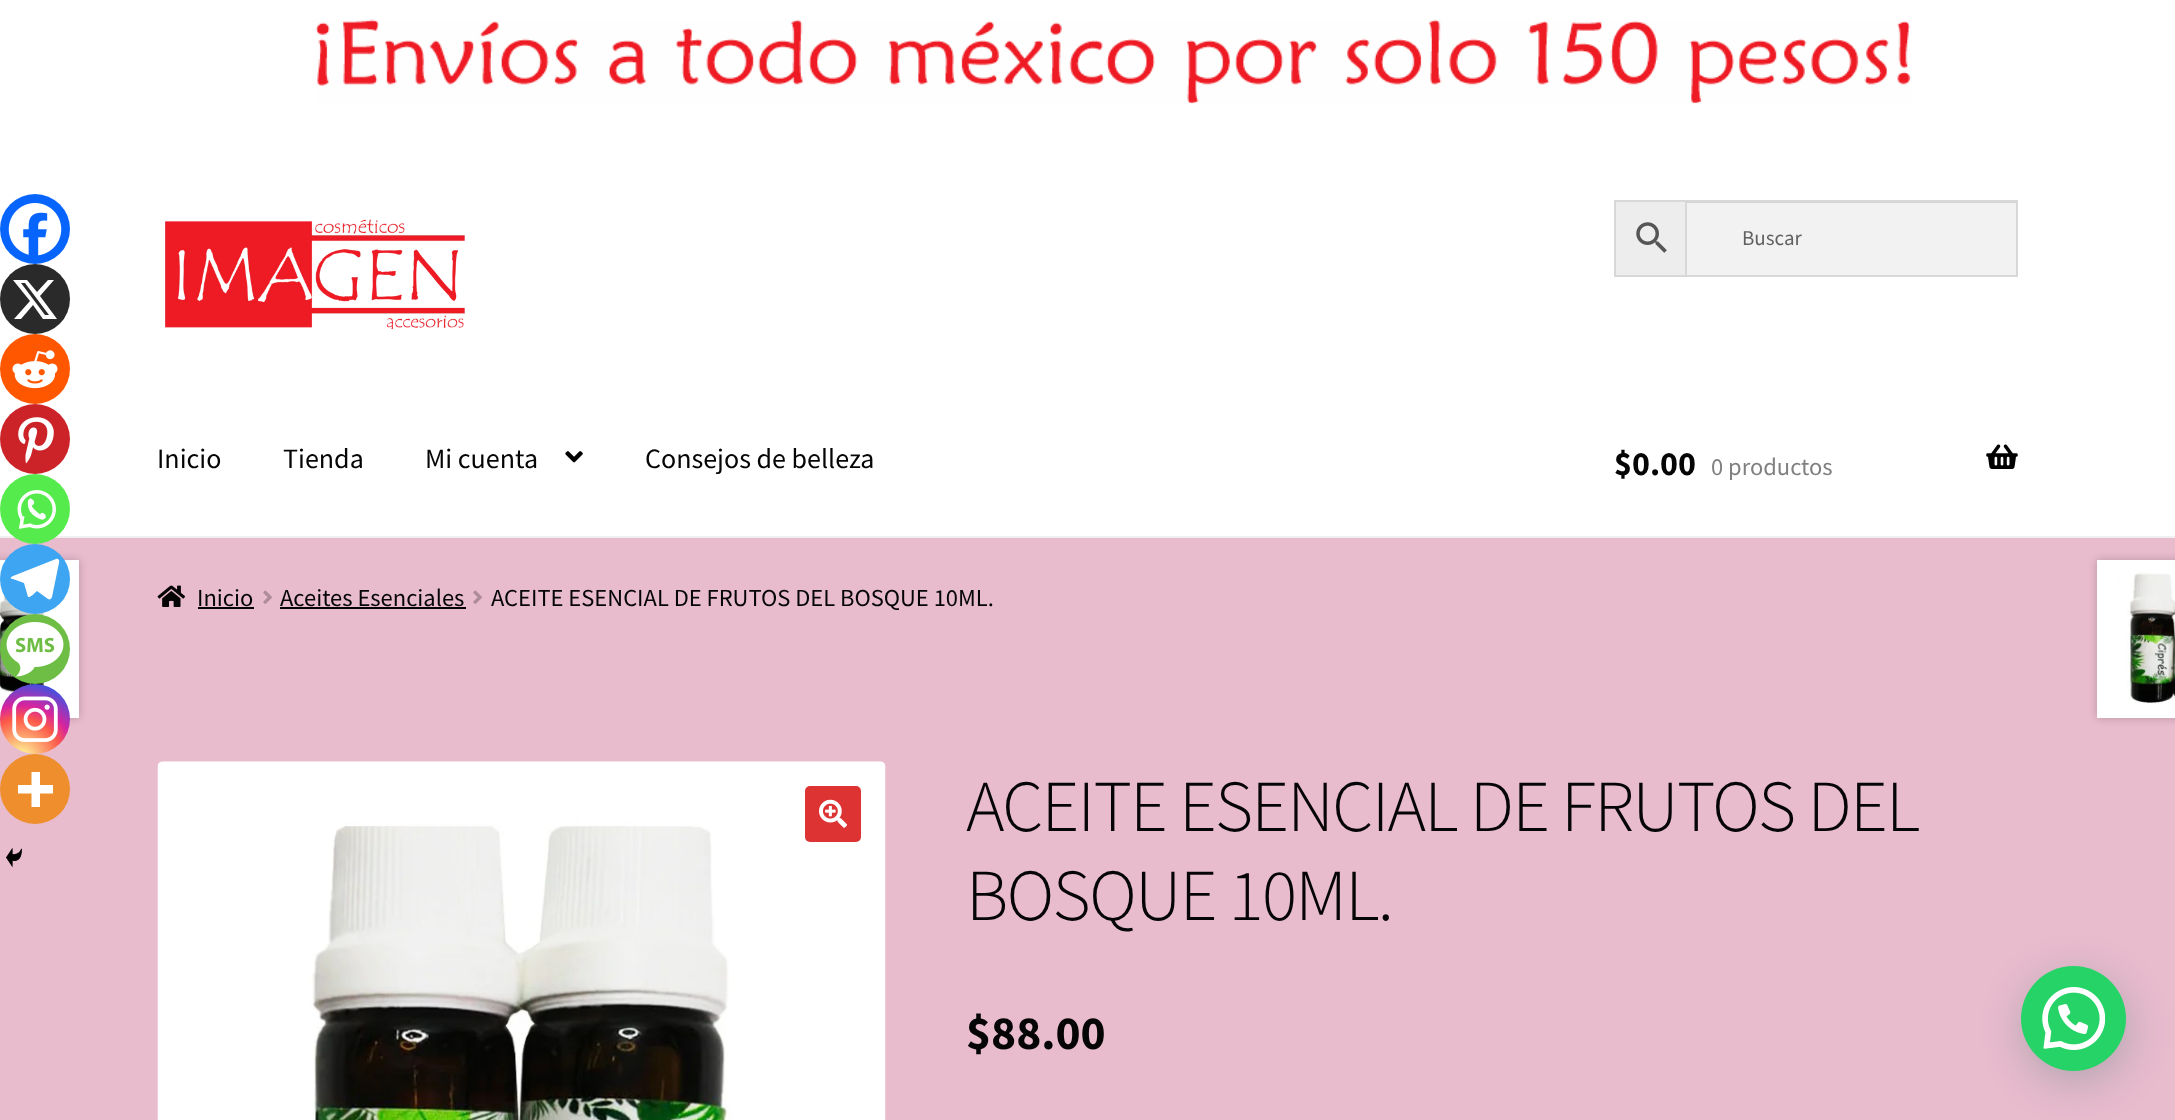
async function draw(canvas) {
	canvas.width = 2175;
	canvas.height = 1120;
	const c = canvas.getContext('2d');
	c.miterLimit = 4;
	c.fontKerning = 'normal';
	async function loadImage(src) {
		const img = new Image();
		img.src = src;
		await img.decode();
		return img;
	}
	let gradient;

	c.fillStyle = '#e8bbcd';
	c.fillRect(0, 0, 2175, 1120);
	c.fillStyle = '#fff';
	c.fillRect(0, 0, 2175, 536);
	c.drawImage(await loadImage('img1.png'), 315, 19, 1596, 85);
	c.fillStyle = '#f0f0f0';
	c.fillRect(0, 536, 2175, 2);
	c.drawImage(await loadImage('img2.png'), 165, 219, 300, 111);
	c.fillStyle = '#ededed';
	c.beginPath();
	c.rect(1615, 201, 71, 75);
	c.fill();
	c.strokeStyle = '#d8d8d8';
	c.lineWidth = 2;
	c.stroke();
	c.drawImage(await loadImage('img3.png'), 1636, 222, 31, 31);
	c.fillStyle = '#f2f2f2';
	c.fillRect(1687, 203, 329, 72);
	c.fillStyle = '#d4d4d4';
	c.fillRect(1687, 202, 329, 1);
	c.strokeRect(1686, 201, 331, 75);
	c.font = '21px Source Sans Pro';
	c.fillStyle = '#616161';
	c.fillText('Buscar', 1742, 245);
	c.font = '28px Source Sans Pro';
	c.fillStyle = '#050505';
	for (const [text, x, y] of [
		['Inicio', 157, 468],
		['Tienda', 283, 468],
		['Mi cuenta', 425, 468],
	]) {
		c.fillText(text, x, y);
	}
	c.drawImage(await loadImage('img4.png'), 565, 451, 18, 12);
	c.fillText('Consejos de belleza', 645, 468);
	c.font = 'bold 34px Source Sans Pro';
	c.fillText('$0.00', 1614, 475);
	c.font = '24.5px Source Sans Pro';
	c.fillStyle = '#808080';
	c.fillText('0 productos', 1711, 475);
	c.drawImage(await loadImage('img5.png'), 1986, 444, 32, 25);
	c.drawImage(await loadImage('img6.png'), 157, 585, 29, 22);
	c.fillStyle = '#050505';
	c.fillText('Inicio', 197, 606);
	c.fillRect(198, 607, 56, 2);
	c.drawImage(await loadImage('img7.png'), 263, 590, 9, 14);
	c.fillText('Aceites Esenciales', 280, 606);
	c.fillRect(280, 607, 186, 2);
	c.drawImage(await loadImage('img7.png'), 473, 590, 9, 14);
	c.fillText('ACEITE ESENCIAL DE FRUTOS DEL BOSQUE 10ML.', 491, 606);
	c.fillStyle = '#0765fe';
	c.beginPath();
	c.arc(35, 229, 35, 0, 2 * Math.PI);
	c.fill();
	c.drawImage(await loadImage('img8.png'), 8, 203, 54, 53);
	c.fillStyle = '#2a2a2a';
	c.beginPath();
	c.arc(35, 299, 35, 0, 2 * Math.PI);
	c.fill();
	c.fillStyle = '#fff';
	c.beginPath();
	c.moveTo(48, 280);
	c.lineTo(54, 280);
	c.lineTo(40, 296);
	c.lineTo(57, 319);
	c.lineTo(43, 319);
	c.lineTo(33, 305);
	c.lineTo(21, 319);
	c.lineTo(14, 319);
	c.lineTo(30, 301);
	c.lineTo(13, 280);
	c.lineTo(27, 280);
	c.lineTo(37, 292);
	c.closePath();
	c.moveTo(45, 315);
	c.lineTo(49, 315);
	c.lineTo(25, 283);
	c.lineTo(21, 283);
	c.closePath();
	c.fill();
	c.fillStyle = '#ff5700';
	c.beginPath();
	c.arc(35, 369, 35, 0, 2 * Math.PI);
	c.fill();
	c.drawImage(await loadImage('img9.png'), 12, 350, 46, 39);
	c.fillStyle = '#cc2329';
	c.beginPath();
	c.arc(35, 439, 35, 0, 2 * Math.PI);
	c.fill();
	c.drawImage(await loadImage('img10.png'), 18, 417, 36, 47);
	c.fillStyle = '#55eb4c';
	c.beginPath();
	c.arc(35, 509, 35, 0, 2 * Math.PI);
	c.fill();
	c.drawImage(await loadImage('img11.png'), 17, 490, 39, 39);
	c.fillStyle = '#00000033';
	c.filter = 'blur(4.5px)';
	c.beginPath();
	c.rect(-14, 560, 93, 158);
	c.fill();
	c.filter = 'none';
	c.drawImage(await loadImage('img15.png'), 0, 560, 79, 158);
	c.fillStyle = '#3da5f1';
	c.beginPath();
	c.arc(35, 579, 35, 0, 2 * Math.PI);
	c.fill();
	c.fillStyle = '#fff';
	c.beginPath();
	c.moveTo(56, 559);
	c.lineTo(13, 576);
	c.bezierCurveTo(10, 577, 10, 579, 13, 579);
	c.lineTo(24, 583);
	c.lineTo(28, 597);
	c.bezierCurveTo(30, 598, 36, 592, 37, 591);
	c.lineTo(48, 599);
	c.bezierCurveTo(50, 600, 51, 599, 52, 597);
	c.lineTo(59, 563);
	c.bezierCurveTo(60, 560, 58, 558, 56, 559);
	c.closePath();
	c.fill();
	c.fillStyle = '#6ebe45';
	c.beginPath();
	c.arc(35, 649, 35, 0, 2 * Math.PI);
	c.fill();
	c.drawImage(await loadImage('img12.png'), 6, 622, 58, 55);
	gradient = c.createRadialGradient(21, 759, 0, 21, 759, 90);
	gradient.addColorStop(0, '#fdf497');
	gradient.addColorStop(0.05, '#fdf497');
	gradient.addColorStop(0.45, '#fd5949');
	gradient.addColorStop(0.6, '#d6249f');
	gradient.addColorStop(0.9, '#285aeb');
	c.fillStyle = gradient;
	c.beginPath();
	c.arc(35, 719, 35, 0, 2 * Math.PI);
	c.fill();
	c.drawImage(await loadImage('img13.png'), 12, 696, 46, 46);
	c.fillStyle = '#ee8e2d';
	c.beginPath();
	c.arc(35, 789, 35, 0, 2 * Math.PI);
	c.fill();
	c.fillStyle = '#fff';
	c.beginPath();
	c.moveTo(40, 785);
	c.lineTo(40, 772);
	c.lineTo(31.5, 772);
	c.lineTo(31.5, 785);
	c.lineTo(18, 785);
	c.lineTo(18, 793.5);
	c.lineTo(31.5, 793.5);
	c.lineTo(31.5, 807);
	c.lineTo(40, 807);
	c.lineTo(40, 793.5);
	c.lineTo(53, 793.5);
	c.lineTo(53, 785);
	c.closePath();
	c.fill('evenodd');
	c.drawImage(await loadImage('img14.png'), 6, 847, 16, 21);
	c.fillStyle = '#00000033';
	c.filter = 'blur(4.5px)';
	c.beginPath();
	c.rect(2097, 560, 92, 158);
	c.fill();
	c.filter = 'none';
	c.drawImage(await loadImage('img16.png'), 2097, 560, 78, 158);
	c.drawImage(await loadImage('img17.png'), 157, 761, 729, 359);
	c.fillStyle = '#d33';
	c.beginPath();
	c.roundRect(805, 786, 56, 56, 5);
	c.fill();
	c.drawImage(await loadImage('img18.png'), 819, 799, 28, 29);
	c.letterSpacing = '-1.75px';
	c.font = '300 73.25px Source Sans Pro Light';
	c.fillStyle = '#050505';
	c.fillText('ACEITE ESENCIAL DE FRUTOS DEL', 966, 831);
	c.fillText('BOSQUE 10ML.', 966, 920);
	c.letterSpacing = '0px';
	c.font = 'bold 47.5px Source Sans Pro';
	c.fillText('$88.00', 966, 1049);
	c.fillStyle = '#075e543d';
	c.filter = 'blur(21px)';
	c.beginPath();
	c.roundRect(2023, 977, 105, 105, 52.5);
	c.fill();
	c.filter = 'none';
	c.fillStyle = '#25d366';
	c.beginPath();
	c.arc(2073.5, 1018.5, 52.5, 0, 2 * Math.PI);
	c.fill();
	c.drawImage(await loadImage('img19.png'), 2042, 987, 63, 63);
}

draw(document.querySelector('canvas'));
